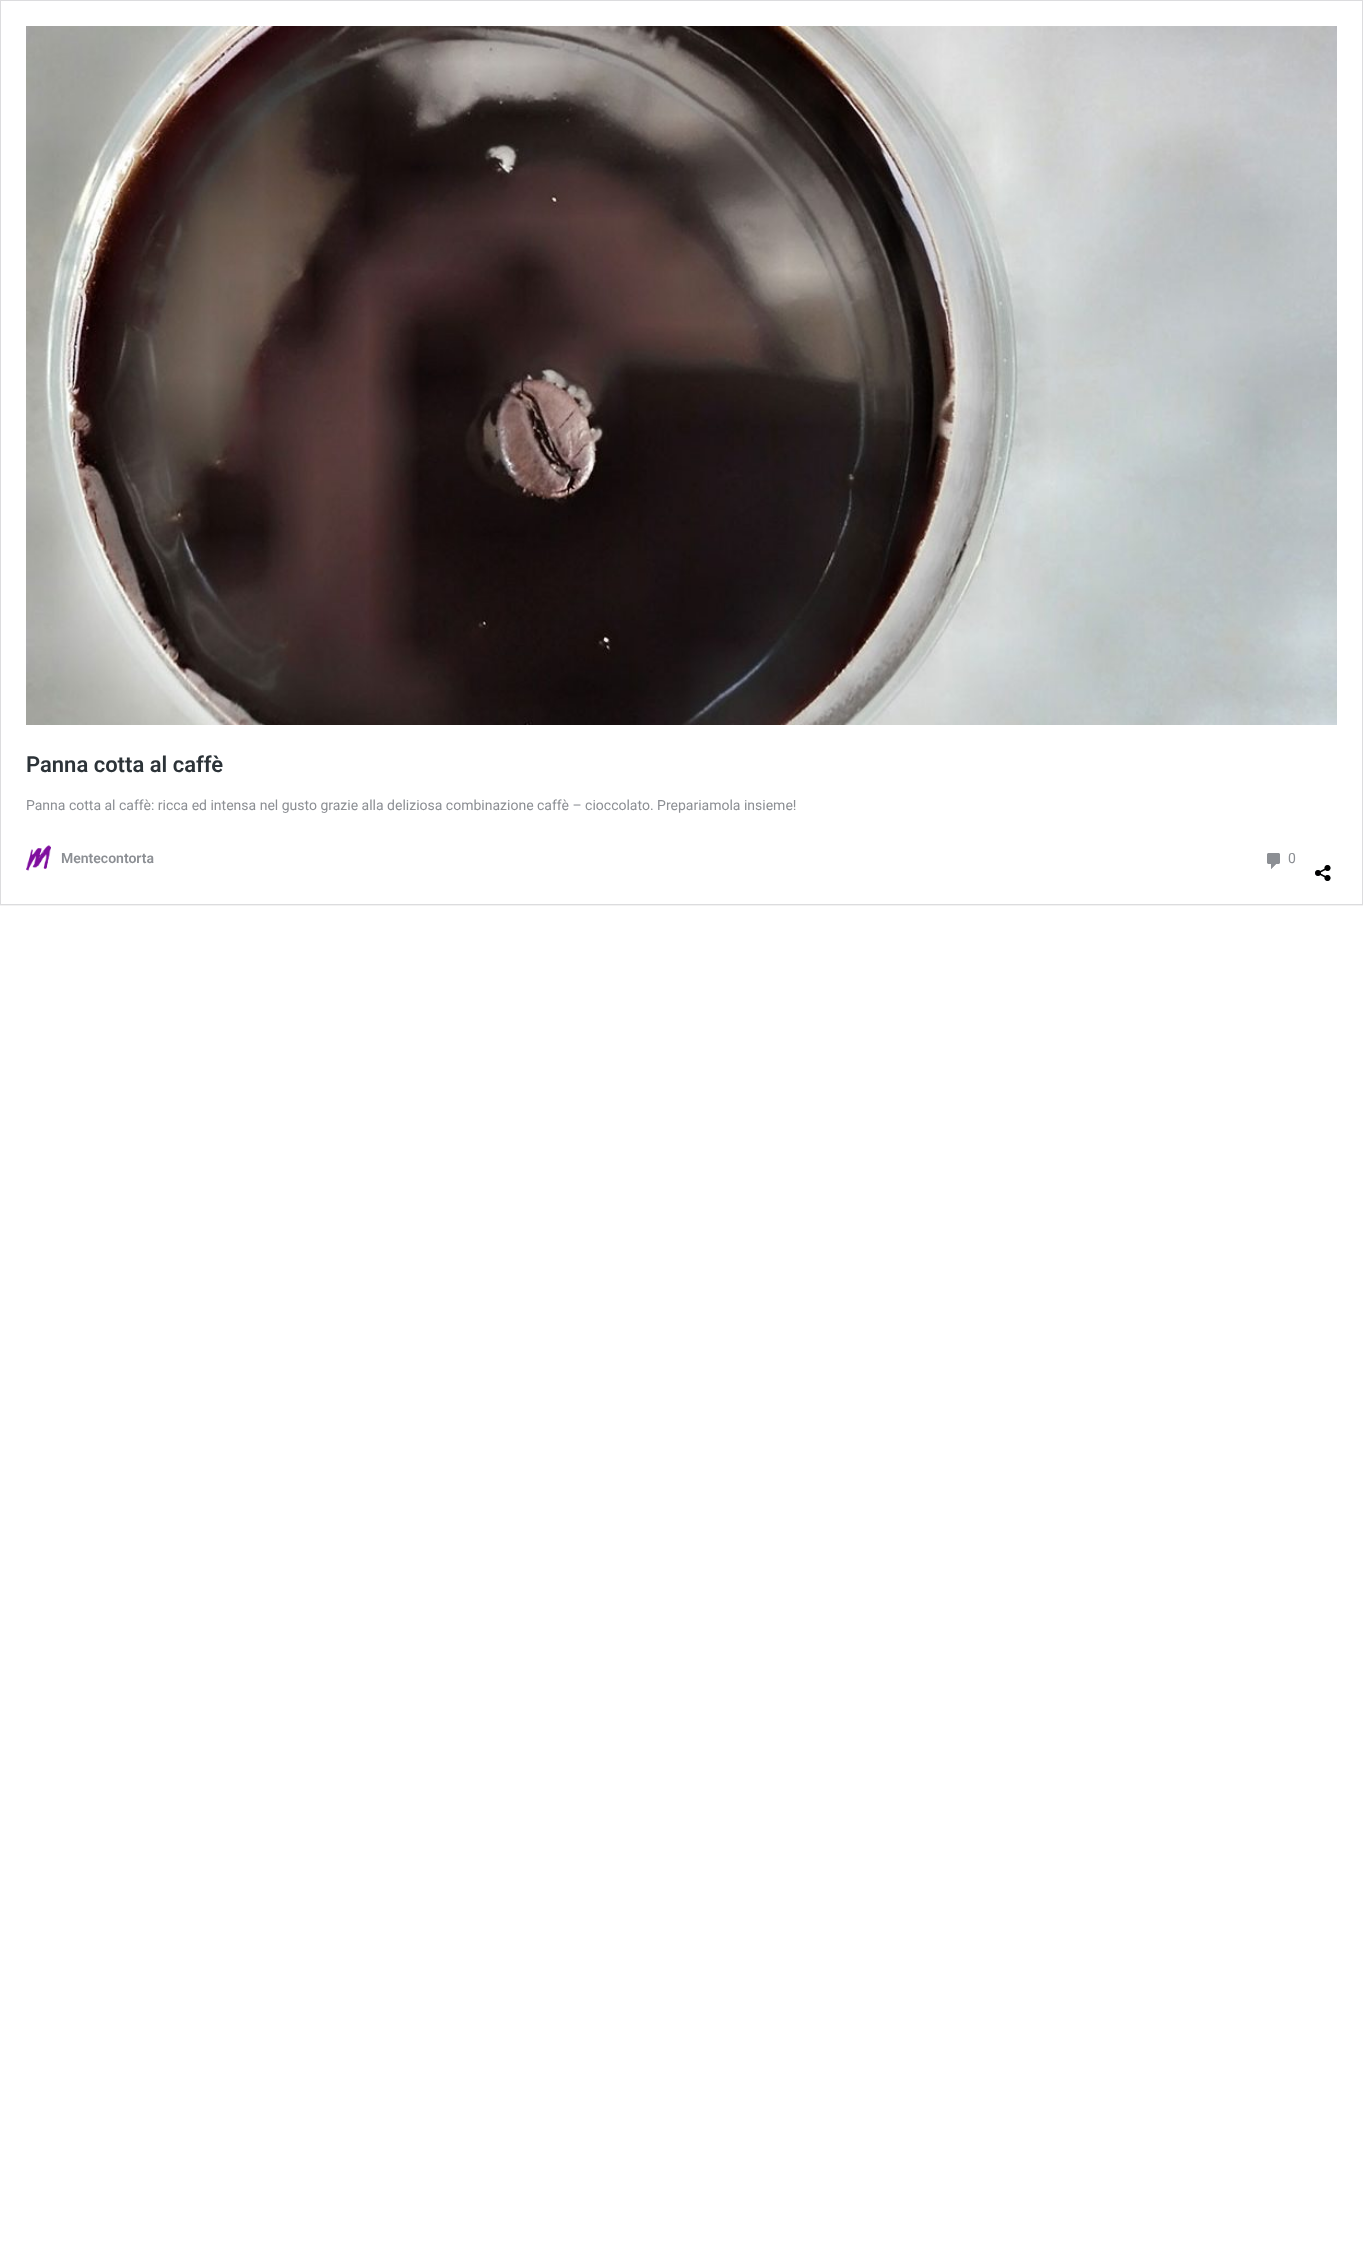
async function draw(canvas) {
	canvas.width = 1363;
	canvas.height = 2258;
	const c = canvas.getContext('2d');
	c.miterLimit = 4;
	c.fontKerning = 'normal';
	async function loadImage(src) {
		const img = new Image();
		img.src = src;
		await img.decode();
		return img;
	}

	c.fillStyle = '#fff';
	c.fillRect(0, 0, 1363, 2258);
	c.save();
	c.beginPath();
	c.rect(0, 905, 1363, 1);
	c.clip();
	c.fillStyle = '#0000000d';
	c.filter = 'blur(0.5px)';
	c.beginPath();
	c.rect(0, 1, 1363, 905);
	c.fill();
	c.filter = 'none';
	c.restore();
	c.strokeStyle = '#dcdcde';
	c.strokeRect(0.5, 0.5, 1362, 904);
	c.drawImage(await loadImage('img1.png'), 26, 26, 1311, 699);
	c.font = '600 22px Roboto';
	c.fillStyle = '#2c3338';
	c.fillText('Panna cotta al caffè', 26, 772);
	c.font = '14px Roboto';
	c.fillStyle = '#8c8f94';
	c.fillText('Panna cotta al caffè: ricca ed intensa nel gusto grazie alla deliziosa combinazione caffè – cioccolato. Prepariamola insieme!', 26, 810);
	c.drawImage(await loadImage('img2.png'), 26, 845, 25, 26);
	c.font = '600 14px Roboto';
	c.fillText('Mentecontorta', 61, 863);
	c.drawImage(await loadImage('img3.png'), 1267, 853, 13, 16);
	c.drawImage(await loadImage('img4.png'), 1267, 853, 13, 16);
	c.font = '14px Roboto';
	c.fillText('0', 1288, 863);
	c.drawImage(await loadImage('img5.png'), 1315, 865, 16, 16);
	c.drawImage(await loadImage('img6.png'), 1315, 865, 16, 16);
}

draw(document.querySelector('canvas'));
